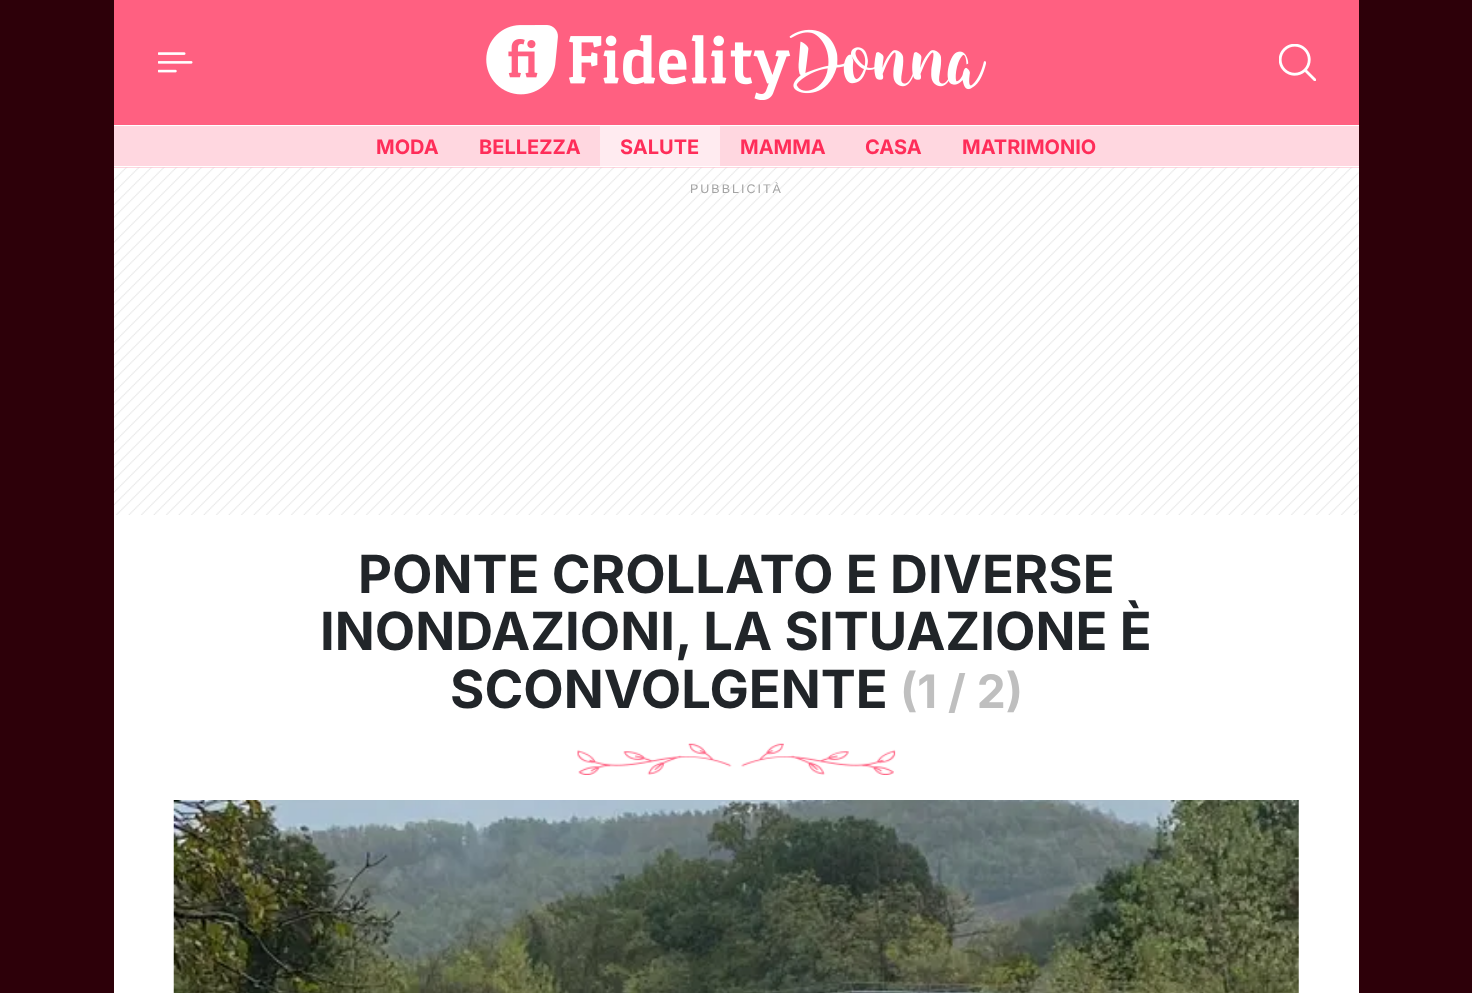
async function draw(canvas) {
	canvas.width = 1472;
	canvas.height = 993;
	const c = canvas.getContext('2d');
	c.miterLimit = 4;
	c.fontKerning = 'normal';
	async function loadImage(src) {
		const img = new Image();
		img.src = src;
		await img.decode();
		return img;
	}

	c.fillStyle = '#2d0009';
	c.fillRect(0, 0, 1472, 993);
	c.fillStyle = '#fff';
	c.fillRect(114, 168, 1245, 825);
	c.fillStyle = '#ff6081';
	c.fillRect(114, 0, 1245, 125);
	c.drawImage(await loadImage('img1.png'), 158, 52, 35, 21);
	c.drawImage(await loadImage('img2.png'), 486, 25, 500, 75);
	c.drawImage(await loadImage('img3.png'), 1279, 44, 37, 37);
	for (const [x, y, w, h, color] of [
		[114, 126, 1245, 42, '#ffd7e0'],
		[114, 125, 1245, 1, '#fff'],
		[114, 166, 1245, 1, '#fff'],
	]) {
		c.fillStyle = color;
		c.fillRect(x, y, w, h);
	}
	c.font = 'bold 20px Inter';
	c.fillStyle = '#ff2d59';
	c.fillText('MODA', 376, 154);
	c.fillText('BELLEZZA', 479, 154);
	c.fillStyle = '#ffebf0';
	c.fillRect(600, 126, 120, 40);
	c.fillStyle = '#ff2d59';
	for (const [text, x, y] of [
		['SALUTE', 620, 154],
		['MAMMA', 740, 154],
		['CASA', 865, 154],
		['MATRIMONIO', 962, 154],
	]) {
		c.fillText(text, x, y);
	}
	c.drawImage(await loadImage('img4.png'), 114, 167, 1245, 348);
	c.letterSpacing = '2px';
	c.font = '12.5px Liberation Sans';
	c.fillStyle = '#a3a3a3';
	c.fillText('PUBBLICITÀ', 690, 193);
	c.letterSpacing = '0px';
	c.font = 'bold 52.5px Inter';
	c.fillStyle = '#212529';
	for (const [text, x, y] of [
		['PONTE CROLLATO E DIVERSE', 358, 593],
		['INONDAZIONI, LA SITUAZIONE È', 320, 650],
		['SCONVOLGENTE', 450, 708],
	]) {
		c.fillText(text, x, y);
	}
	c.font = 'bold 46px Inter';
	c.fillStyle = '#bfbfbf';
	c.fillText('(1 / 2)', 900, 708);
	c.drawImage(await loadImage('img5.png'), 577, 743, 319, 32);
	c.drawImage(await loadImage('img6.png'), 173, 800, 1126, 193);
}

draw(document.querySelector('canvas'));
